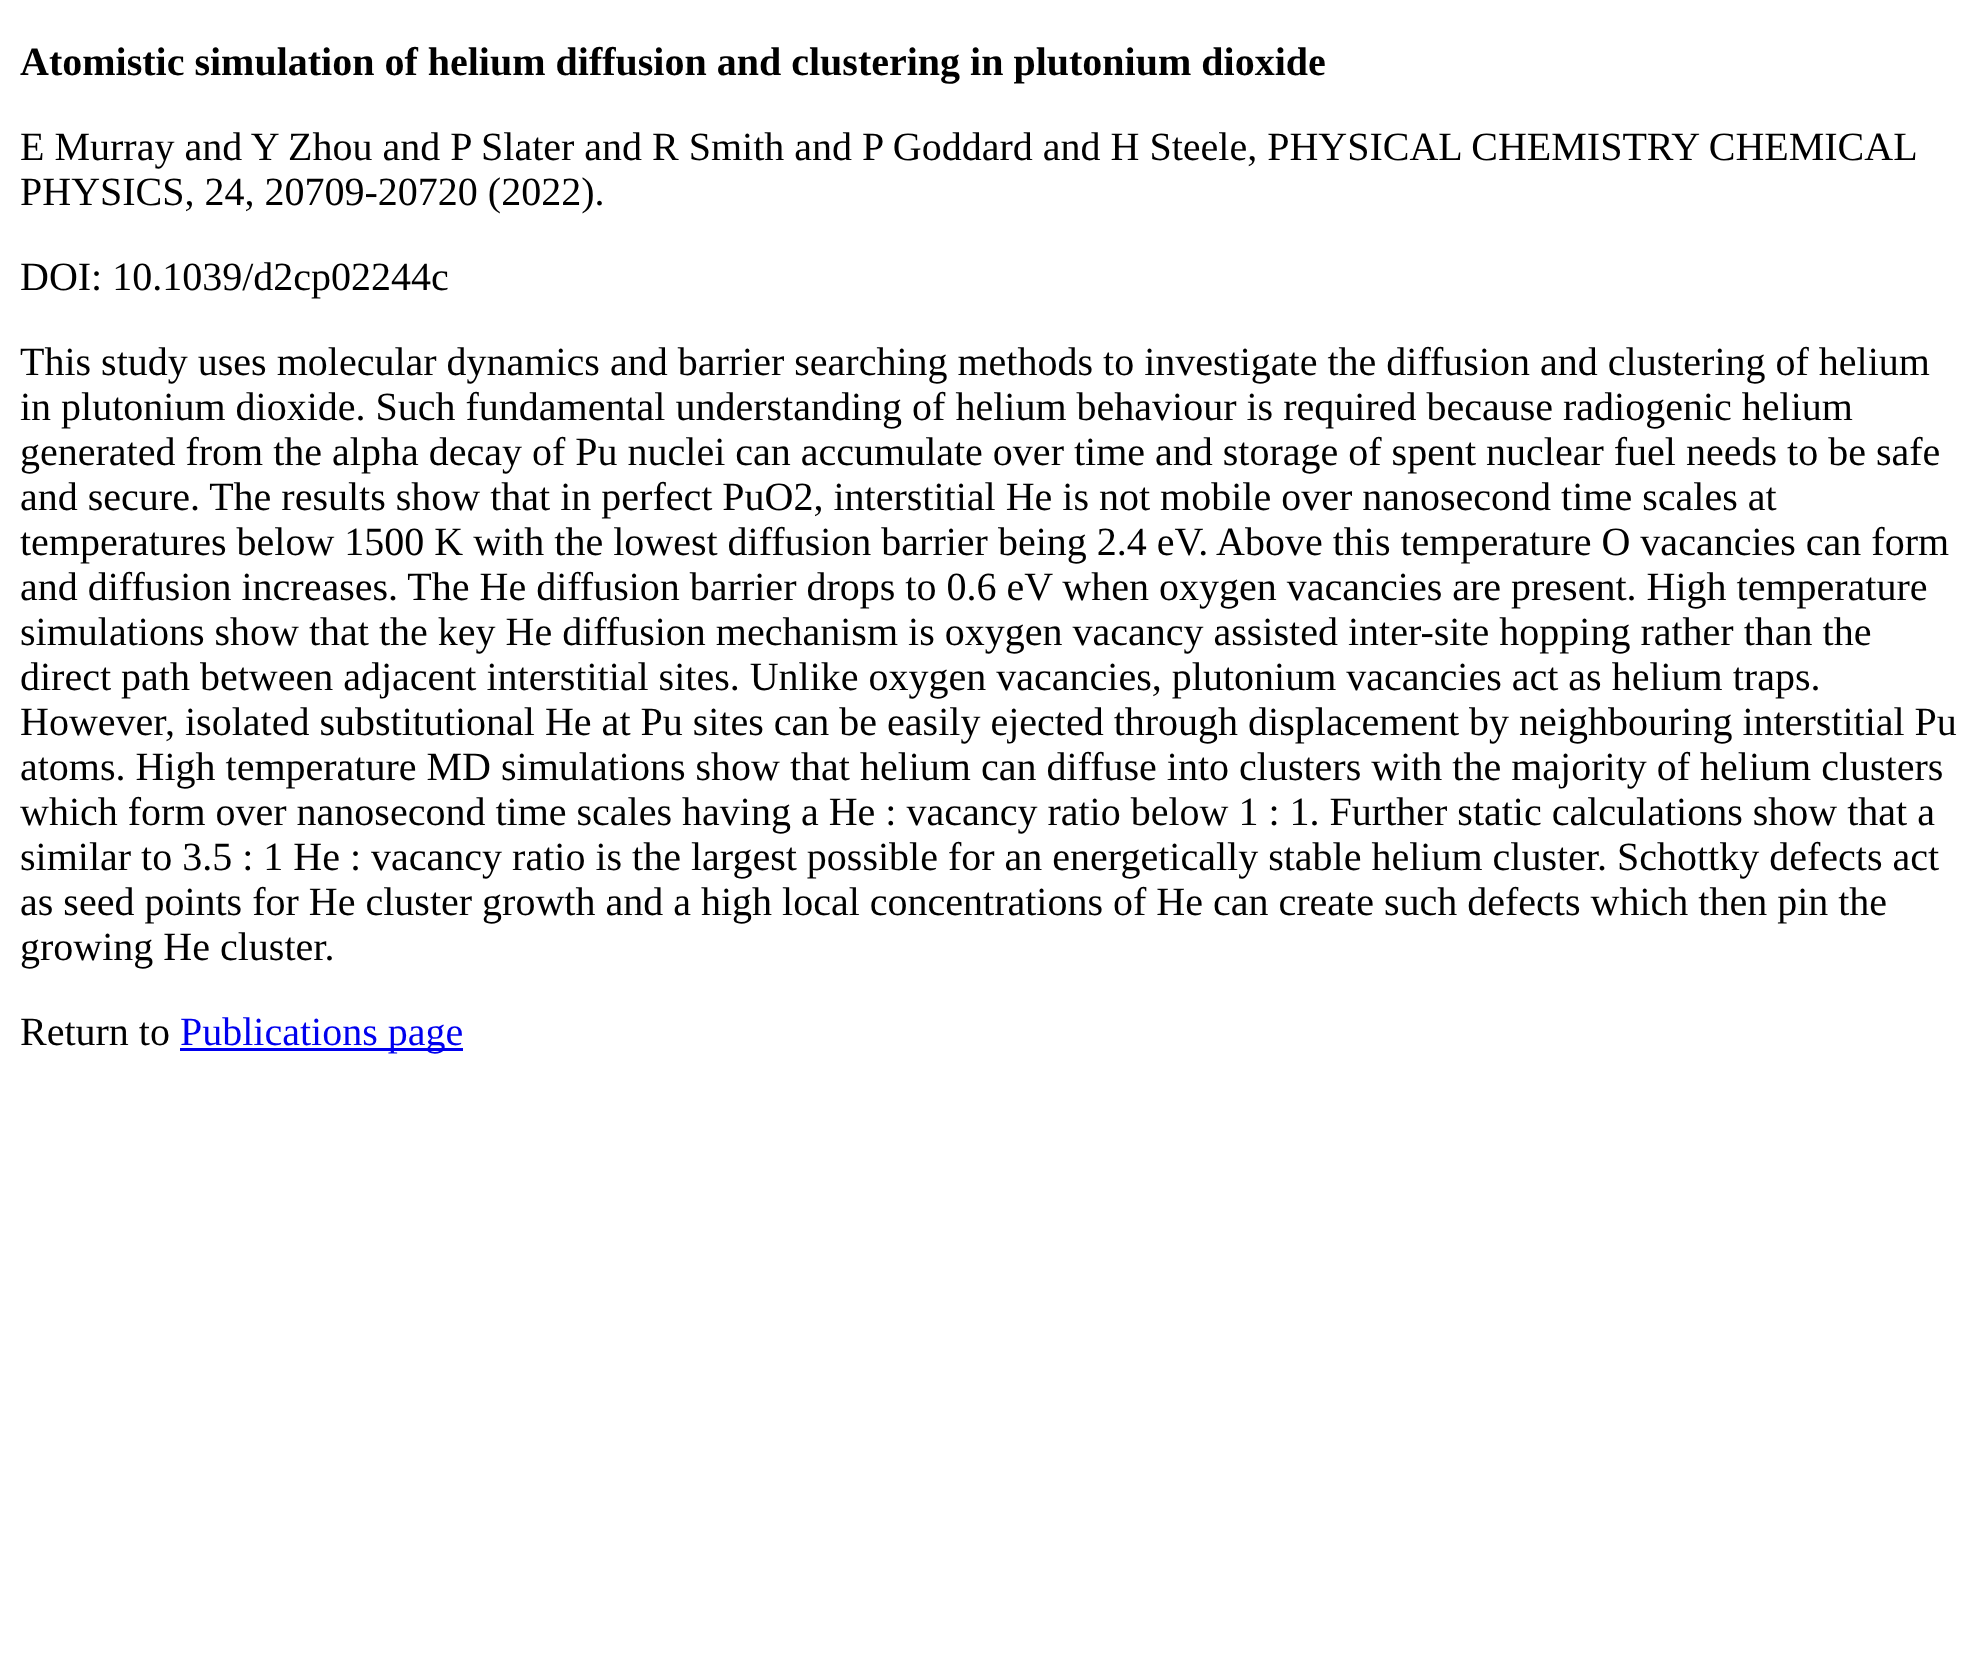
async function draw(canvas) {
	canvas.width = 1986;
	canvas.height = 1668;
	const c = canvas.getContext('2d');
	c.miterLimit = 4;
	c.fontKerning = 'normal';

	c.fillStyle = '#fff';
	c.fillRect(0, 0, 1986, 1668);
	c.font = 'bold 40px Liberation Serif';
	c.fillStyle = '#000';
	c.fillText('Atomistic simulation of helium diffusion and clustering in plutonium dioxide', 20, 75);
	c.font = '40px Liberation Serif';
	for (const [text, x, y] of [
		['E Murray and Y Zhou and P Slater and R Smith and P Goddard and H Steele, PHYSICAL CHEMISTRY CHEMICAL', 20, 160],
		['PHYSICS, 24, 20709-20720 (2022).', 20, 205],
		['DOI: 10.1039/d2cp02244c', 20, 290],
		['This study uses molecular dynamics and barrier searching methods to investigate the diffusion and clustering of helium', 20, 375],
		['in plutonium dioxide. Such fundamental understanding of helium behaviour is required because radiogenic helium', 20, 420],
		['generated from the alpha decay of Pu nuclei can accumulate over time and storage of spent nuclear fuel needs to be safe', 20, 465],
		['and secure. The results show that in perfect PuO2, interstitial He is not mobile over nanosecond time scales at', 20, 510],
		['temperatures below 1500 K with the lowest diffusion barrier being 2.4 eV. Above this temperature O vacancies can form', 20, 555],
		['and diffusion increases. The He diffusion barrier drops to 0.6 eV when oxygen vacancies are present. High temperature', 20, 600],
		['simulations show that the key He diffusion mechanism is oxygen vacancy assisted inter-site hopping rather than the', 20, 645],
		['direct path between adjacent interstitial sites. Unlike oxygen vacancies, plutonium vacancies act as helium traps.', 20, 690],
		['However, isolated substitutional He at Pu sites can be easily ejected through displacement by neighbouring interstitial Pu', 20, 735],
		['atoms. High temperature MD simulations show that helium can diffuse into clusters with the majority of helium clusters', 20, 780],
		['which form over nanosecond time scales having a He : vacancy ratio below 1 : 1. Further static calculations show that a', 20, 825],
		['similar to 3.5 : 1 He : vacancy ratio is the largest possible for an energetically stable helium cluster. Schottky defects act', 20, 870],
		['as seed points for He cluster growth and a high local concentrations of He can create such defects which then pin the', 20, 915],
		['growing He cluster.', 20, 960],
		['Return to', 20, 1045],
	]) {
		c.fillText(text, x, y);
	}
	c.fillStyle = '#00e';
	c.fillRect(180, 1048, 283, 3);
	c.fillText('Publications page', 180, 1045);
}

draw(document.querySelector('canvas'));
